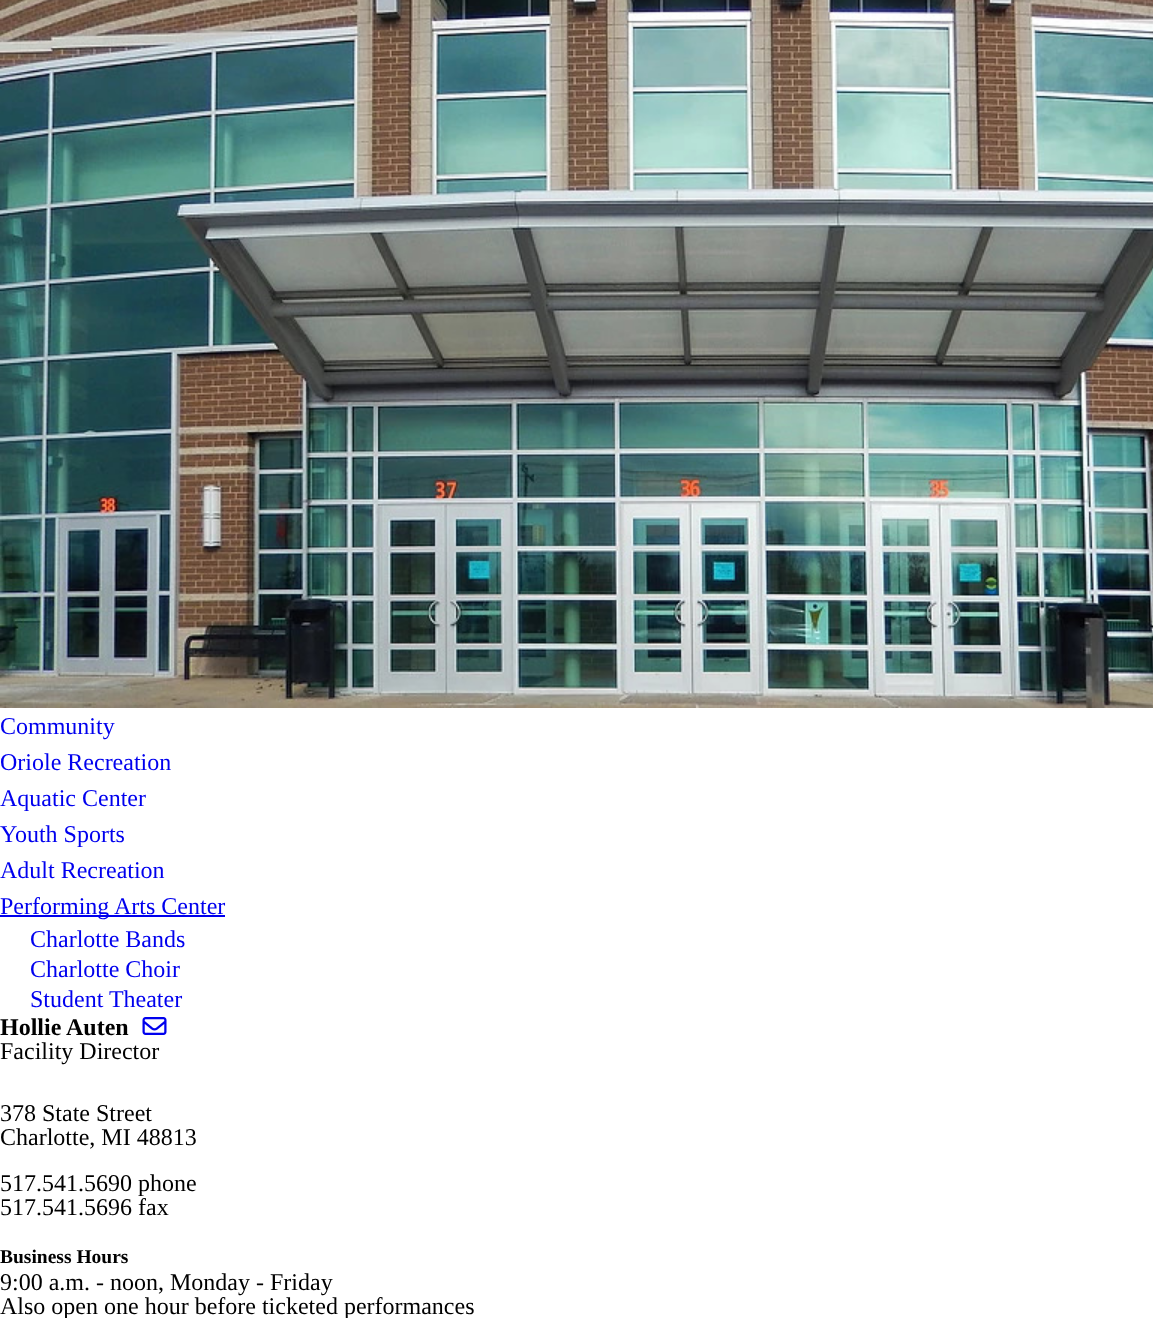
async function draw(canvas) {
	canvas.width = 1153;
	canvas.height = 1318;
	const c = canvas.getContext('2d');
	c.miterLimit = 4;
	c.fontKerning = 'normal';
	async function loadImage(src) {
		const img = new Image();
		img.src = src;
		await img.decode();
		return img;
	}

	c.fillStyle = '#fff';
	c.fillRect(0, 0, 1153, 1318);
	c.drawImage(await loadImage('img1.png'), 0, 0, 1153, 708);
	c.font = '24px Liberation Serif';
	c.fillStyle = '#00e';
	for (const [text, x, y] of [
		['Community', 0, 734],
		['Oriole Recreation', 0, 770],
		['Aquatic Center', 0, 806],
		['Youth Sports', 0, 842],
		['Adult Recreation', 0, 878],
	]) {
		c.fillText(text, x, y);
	}
	c.fillRect(0, 915, 225, 2);
	for (const [text, x, y] of [
		['Performing Arts Center', 0, 914],
		['Charlotte Bands', 30, 947],
		['Charlotte Choir', 30, 977],
		['Student Theater', 30, 1007],
	]) {
		c.fillText(text, x, y);
	}
	c.font = 'bold 24px Liberation Serif';
	c.fillStyle = '#000';
	c.fillText('Hollie Auten', 0, 1035);
	c.drawImage(await loadImage('img2.png'), 142, 1017, 25, 18);
	c.font = '24px Liberation Serif';
	for (const [text, x, y] of [
		['Facility Director', 0, 1059],
		['378 State Street', 0, 1121],
		['Charlotte, MI 48813', 0, 1145],
		['517.541.5690 phone', 0, 1191],
		['517.541.5696 fax', 0, 1215],
	]) {
		c.fillText(text, x, y);
	}
	c.font = 'bold 19.5px Liberation Serif';
	c.fillText('Business Hours', 0, 1263);
	c.font = '24px Liberation Serif';
	c.fillText('9:00 a.m. - noon, Monday - Friday', 0, 1290);
	c.fillText('Also open one hour before ticketed performances', 0, 1314);
}

draw(document.querySelector('canvas'));
